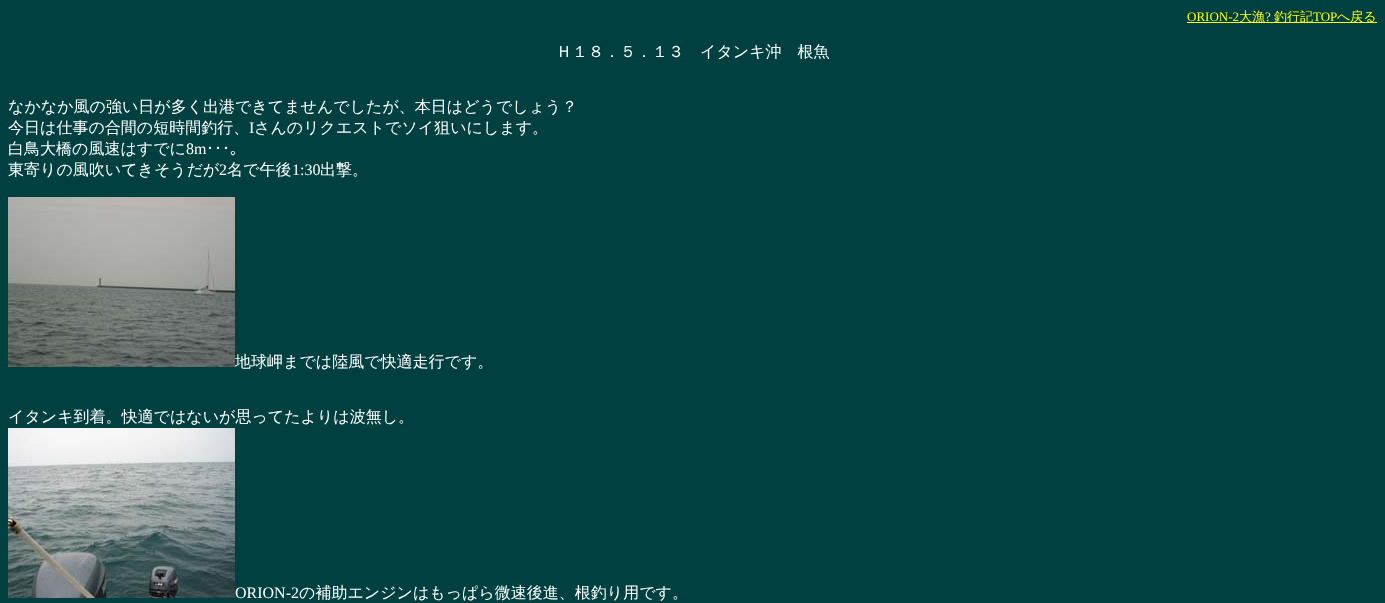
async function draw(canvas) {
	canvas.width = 1385;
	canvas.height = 603;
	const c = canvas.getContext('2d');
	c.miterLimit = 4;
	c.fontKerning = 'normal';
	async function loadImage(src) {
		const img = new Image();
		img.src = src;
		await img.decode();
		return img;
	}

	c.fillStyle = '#004040';
	c.fillRect(0, 0, 1385, 603);
	c.font = '13px Liberation Serif';
	c.fillStyle = '#ff0';
	c.fillText('ORION-2', 1187, 21);
	c.fillRect(1187, 22, 190, 1);
	c.font = '500 13px WenQuanYi Zen Hei';
	c.fillText('大漁', 1239, 21);
	c.font = '13px Liberation Serif';
	c.fillText('?', 1265, 21);
	c.font = '500 13px WenQuanYi Zen Hei';
	c.fillText('釣行記', 1274, 21);
	c.font = '13px Liberation Serif';
	c.fillText('TOP', 1313, 21);
	c.font = '500 13px WenQuanYi Zen Hei';
	c.fillText('へ戻る', 1337, 21);
	c.font = '500 16px WenQuanYi Zen Hei';
	c.fillStyle = '#fff';
	for (const [text, x, y] of [
		['Ｈ１８．５．１３　イタンキ沖　根魚', 556, 57],
		['なかなか風の強い日が多く出港できてませんでしたが、本日はどうでしょう？', 8, 112],
		['今日は仕事の合間の短時間釣行、', 8, 133],
	]) {
		c.fillText(text, x, y);
	}
	c.font = '16px Liberation Serif';
	c.fillText('I', 249, 133);
	c.font = '500 16px WenQuanYi Zen Hei';
	c.fillText('さんのリクエストでソイ狙いにします。', 254, 133);
	c.fillText('白鳥大橋の風速はすでに', 8, 154);
	c.font = '16px Liberation Serif';
	c.fillText('8m', 186, 154);
	c.font = '16px IPAGothic';
	c.fillText('･･･｡', 206, 154);
	c.font = '500 16px WenQuanYi Zen Hei';
	c.fillText('東寄りの風吹いてきそうだが', 8, 175);
	c.font = '16px Liberation Serif';
	c.fillText('2', 219, 175);
	c.font = '500 16px WenQuanYi Zen Hei';
	c.fillText('名で午後', 227, 175);
	c.font = '16px Liberation Serif';
	c.fillText('1:30', 292, 175);
	c.font = '500 16px WenQuanYi Zen Hei';
	c.fillText('出撃。', 320, 175);
	c.drawImage(await loadImage('img1.png'), 8, 197, 227, 170);
	c.fillText('地球岬までは陸風で快適走行です。', 235, 367);
	c.fillText('イタンキ到着。快適ではないが思ってたよりは波無し。', 8, 422);
	c.drawImage(await loadImage('img2.png'), 8, 428, 227, 170);
	c.font = '16px Liberation Serif';
	c.fillText('ORION-2', 235, 598);
	c.font = '500 16px WenQuanYi Zen Hei';
	c.fillText('の補助エンジンはもっぱら微速後進、根釣り用です。', 299, 598);
}

draw(document.querySelector('canvas'));
